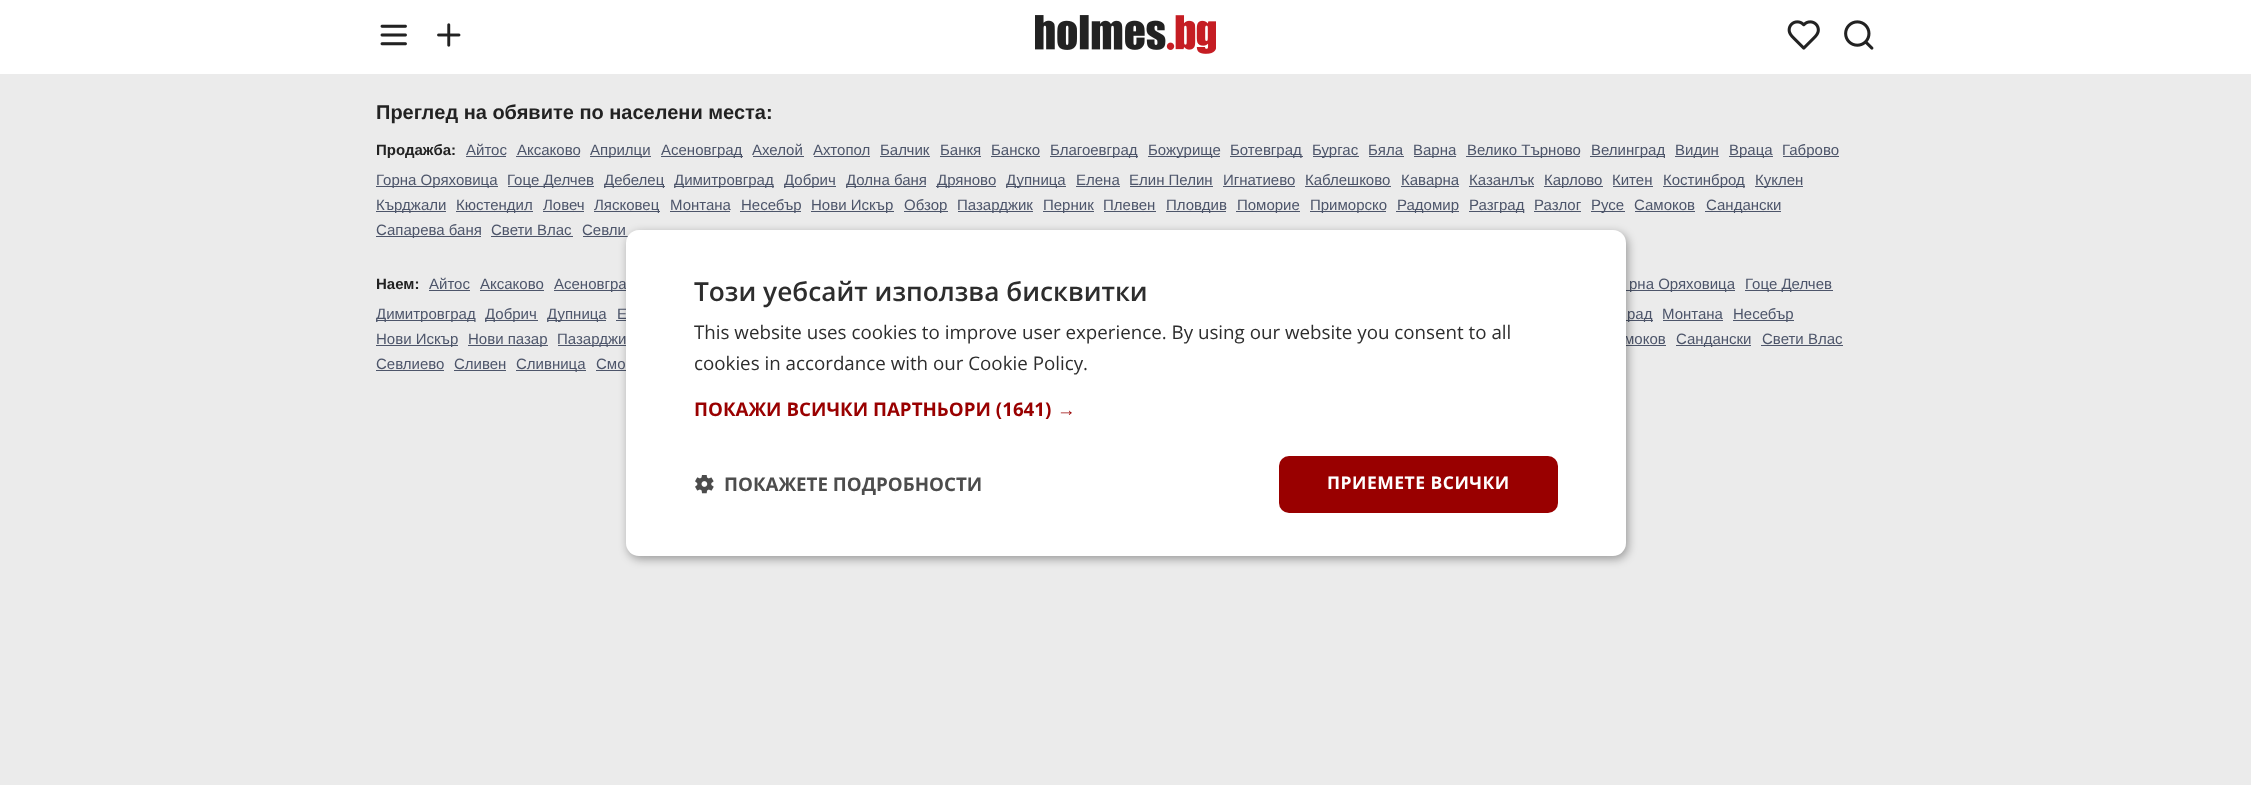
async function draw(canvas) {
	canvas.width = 2251;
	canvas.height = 785;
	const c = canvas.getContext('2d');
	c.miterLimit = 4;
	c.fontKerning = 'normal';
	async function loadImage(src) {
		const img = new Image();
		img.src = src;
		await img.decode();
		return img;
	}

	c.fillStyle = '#ebebeb';
	c.fillRect(0, 0, 2251, 785);
	c.fillStyle = '#fff';
	c.fillRect(0, 0, 2251, 74);
	c.drawImage(await loadImage('img1.png'), 380, 24, 27, 22);
	c.drawImage(await loadImage('img2.png'), 437, 23, 24, 24);
	c.drawImage(await loadImage('img3.png'), 1035, 15, 181, 39);
	c.drawImage(await loadImage('img4.png'), 1787, 20, 33, 30);
	c.drawImage(await loadImage('img5.png'), 1844, 20, 30, 30);
	c.font = 'bold 20px Liberation Sans';
	c.fillStyle = '#222';
	c.fillText('Преглeд на обявите по населени места:', 376, 119);
	c.font = 'bold 15px Liberation Sans';
	c.fillText('Продажба:', 376, 155);
	c.font = '15px Liberation Sans';
	c.fillStyle = '#4d556a';
	c.fillText('Айтос', 466, 155);
	c.fillRect(466, 156, 40, 1);
	c.fillText('Аксаково', 517, 155);
	c.fillRect(516, 156, 64, 1);
	c.fillRect(590, 156, 61, 1);
	c.fillText('Априлци', 590, 155);
	c.fillRect(661, 156, 82, 1);
	c.fillText('Асеновград', 661, 155);
	c.fillText('Ахелой', 752, 155);
	c.fillRect(753, 156, 51, 1);
	c.fillText('Ахтопол', 813, 155);
	c.fillRect(814, 156, 56, 1);
	c.fillText('Балчик', 880, 155);
	c.fillRect(880, 156, 50, 1);
	c.fillText('Банкя', 940, 155);
	c.fillRect(940, 156, 41, 1);
	c.fillText('Банско', 991, 155);
	c.fillRect(991, 156, 49, 1);
	c.fillRect(1050, 156, 88, 1);
	c.fillText('Благоевград', 1050, 155);
	c.fillRect(1148, 156, 72, 1);
	c.fillText('Божурище', 1148, 155);
	c.fillRect(1230, 156, 73, 1);
	c.fillText('Ботевград', 1230, 155);
	c.fillRect(1313, 156, 46, 1);
	c.fillText('Бургас', 1312, 155);
	c.fillText('Бяла', 1368, 155);
	c.fillRect(1369, 156, 35, 1);
	c.fillRect(1414, 156, 42, 1);
	c.fillText('Варна', 1413, 155);
	c.fillRect(1466, 156, 114, 1);
	c.fillText('Велико Търново', 1467, 155);
	c.fillRect(1590, 156, 75, 1);
	c.fillText('Велинград', 1591, 155);
	c.fillRect(1675, 156, 44, 1);
	c.fillText('Видин', 1675, 155);
	c.fillRect(1729, 156, 44, 1);
	c.fillText('Враца', 1729, 155);
	c.fillRect(1783, 156, 56, 1);
	c.fillText('Габрово', 1782, 155);
	c.fillRect(376, 186, 122, 1);
	c.fillText('Горна Оряховица', 376, 185);
	c.fillRect(508, 186, 86, 1);
	c.fillText('Гоце Делчев', 507, 185);
	c.fillRect(604, 186, 61, 1);
	c.fillText('Дебелец', 604, 185);
	c.fillRect(675, 186, 99, 1);
	c.fillText('Димитровград', 674, 185);
	c.fillRect(784, 186, 52, 1);
	c.fillText('Добрич', 784, 185);
	c.fillRect(846, 186, 80, 1);
	c.fillText('Долна баня', 846, 185);
	c.fillRect(936, 186, 60, 1);
	c.fillText('Дряново', 937, 185);
	c.fillRect(1006, 186, 60, 1);
	c.fillText('Дупница', 1006, 185);
	c.fillText('Елена', 1076, 185);
	c.fillRect(1076, 186, 44, 1);
	c.fillText('Елин Пелин', 1129, 185);
	c.fillRect(1130, 186, 83, 1);
	c.fillText('Игнатиево', 1223, 185);
	c.fillRect(1223, 186, 72, 1);
	c.fillText('Каблешково', 1305, 185);
	c.fillRect(1305, 186, 86, 1);
	c.fillRect(1401, 186, 58, 1);
	c.fillText('Каварна', 1401, 185);
	c.fillText('Казанлък', 1469, 185);
	c.fillRect(1469, 186, 65, 1);
	c.fillRect(1544, 186, 59, 1);
	c.fillText('Карлово', 1544, 185);
	c.fillText('Китен', 1612, 185);
	c.fillRect(1613, 186, 40, 1);
	c.fillRect(1663, 186, 82, 1);
	c.fillText('Костинброд', 1663, 185);
	c.fillRect(1755, 186, 48, 1);
	c.fillText('Куклен', 1755, 185);
	c.fillRect(376, 211, 70, 1);
	c.fillText('Кърджали', 376, 210);
	c.fillRect(456, 211, 77, 1);
	c.fillText('Кюстендил', 456, 210);
	c.fillText('Ловеч', 543, 210);
	c.fillRect(543, 211, 41, 1);
	c.fillRect(594, 211, 66, 1);
	c.fillText('Лясковец', 594, 210);
	c.fillText('Монтана', 670, 210);
	c.fillRect(670, 211, 60, 1);
	c.fillRect(740, 211, 61, 1);
	c.fillText('Несебър', 741, 210);
	c.fillRect(811, 211, 83, 1);
	c.fillText('Нови Искър', 811, 210);
	c.fillRect(904, 211, 44, 1);
	c.fillText('Обзор', 904, 210);
	c.fillRect(958, 211, 75, 1);
	c.fillText('Пазарджик', 957, 210);
	c.fillRect(1043, 211, 51, 1);
	c.fillText('Перник', 1043, 210);
	c.fillText('Плевен', 1103, 210);
	c.fillRect(1104, 211, 52, 1);
	c.fillRect(1166, 211, 60, 1);
	c.fillText('Пловдив', 1166, 210);
	c.fillRect(1236, 211, 64, 1);
	c.fillText('Поморие', 1237, 210);
	c.fillRect(1310, 211, 76, 1);
	c.fillText('Приморско', 1310, 210);
	c.fillRect(1396, 211, 63, 1);
	c.fillText('Радомир', 1397, 210);
	c.fillRect(1469, 211, 55, 1);
	c.fillText('Разград', 1469, 210);
	c.fillText('Разлог', 1534, 210);
	c.fillRect(1534, 211, 47, 1);
	c.fillRect(1591, 211, 34, 1);
	c.fillText('Русе', 1591, 210);
	c.fillText('Самоков', 1634, 210);
	c.fillRect(1635, 211, 60, 1);
	c.fillRect(1705, 211, 76, 1);
	c.fillText('Сандански', 1706, 210);
	c.fillRect(376, 236, 105, 1);
	c.fillText('Сапарева баня', 376, 235);
	c.fillText('Свети Влас', 491, 235);
	c.fillRect(491, 236, 82, 1);
	c.fillText('Севли', 582, 235);
	c.fillRect(583, 236, 45, 1);
	c.font = 'bold 15px Liberation Sans';
	c.fillStyle = '#222';
	c.fillText('Наем:', 376, 289);
	c.font = '15px Liberation Sans';
	c.fillStyle = '#4d556a';
	c.fillText('Айтос', 429, 289);
	c.fillRect(429, 290, 41, 1);
	c.fillText('Аксаково', 480, 289);
	c.fillRect(480, 290, 64, 1);
	c.fillRect(554, 290, 72, 1);
	c.fillText('Асеновгра', 554, 289);
	c.fillRect(1626, 290, 109, 1);
	c.fillText('рна Оряховица', 1629, 289);
	c.fillRect(1745, 290, 88, 1);
	c.fillText('Гоце Делчев', 1745, 289);
	c.fillRect(376, 320, 99, 1);
	c.save();
	c.beginPath();
	c.rect(376, 103, 1500, 268);
	c.clip();
	c.fillText('Димитровград', 376, 319);
	c.restore();
	c.fillRect(485, 320, 53, 1);
	c.fillText('Добрич', 485, 319);
	c.fillRect(548, 320, 58, 1);
	c.fillText('Дупница', 547, 319);
	c.fillText('Е', 617, 319);
	c.fillRect(616, 320, 10, 1);
	c.fillRect(1626, 320, 27, 1);
	c.fillText('рад', 1627, 319);
	c.fillText('Монтана', 1662, 319);
	c.fillRect(1663, 320, 60, 1);
	c.fillRect(1733, 320, 61, 1);
	c.fillText('Несебър', 1733, 319);
	c.fillRect(376, 345, 82, 1);
	c.fillText('Нови Искър', 376, 344);
	c.fillRect(468, 345, 80, 1);
	c.fillText('Нови пазар', 468, 344);
	c.fillRect(558, 345, 76, 1);
	c.fillText('Пазарджи', 557, 344);
	c.fillText('моков', 1624, 344);
	c.fillRect(1626, 345, 40, 1);
	c.fillRect(1676, 345, 75, 1);
	c.fillText('Сандански', 1676, 344);
	c.fillText('Свети Влас', 1762, 344);
	c.fillRect(1761, 345, 82, 1);
	c.fillText('Севлиево', 376, 369);
	c.fillRect(376, 370, 68, 1);
	c.fillText('Сливен', 454, 369);
	c.fillRect(454, 370, 52, 1);
	c.fillRect(516, 370, 70, 1);
	c.fillText('Сливница', 516, 369);
	c.fillText('Смо', 596, 369);
	c.fillRect(596, 370, 30, 1);
	c.fillStyle = '#00000059';
	c.filter = 'blur(5px)';
	c.beginPath();
	c.roundRect(628, 233, 1000, 326, 13);
	c.fill();
	c.filter = 'none';
	c.fillStyle = '#fff';
	c.beginPath();
	c.roundRect(626, 230, 1000, 326, 13);
	c.fill();
	c.font = '600 26.25px Open Sans';
	c.fillStyle = '#2d2d2d';
	c.fillText('Този уебсайт използва бисквитки', 694, 301);
	c.font = '18.75px Open Sans';
	c.fillText('This website uses cookies to improve user experience. By using our website you consent to all', 694, 339);
	c.fillText('cookies in accordance with our Cookie Policy.', 694, 370);
	c.font = 'bold 18.75px Open Sans';
	c.fillStyle = '#900';
	c.fillText('ПОКАЖИ ВСИЧКИ ПАРТНЬОРИ (1641)', 694, 416);
	c.font = 'bold 18.75px Liberation Sans';
	c.fillText('→', 1057, 416);
	c.drawImage(await loadImage('img6.png'), 695, 475, 19, 19);
	c.font = 'bold 18.75px Open Sans';
	c.fillStyle = '#4d4d4d';
	c.fillText('ПОКАЖЕТЕ ПОДРОБНОСТИ', 724, 491);
	c.fillStyle = '#900';
	c.beginPath();
	c.roundRect(1279, 456, 279, 57, 10);
	c.fill();
	c.letterSpacing = '0.5px';
	c.font = 'bold 17.5px Open Sans';
	c.fillStyle = '#fff';
	c.fillText('ПРИЕМЕТЕ ВСИЧКИ', 1327, 489);
}

draw(document.querySelector('canvas'));
